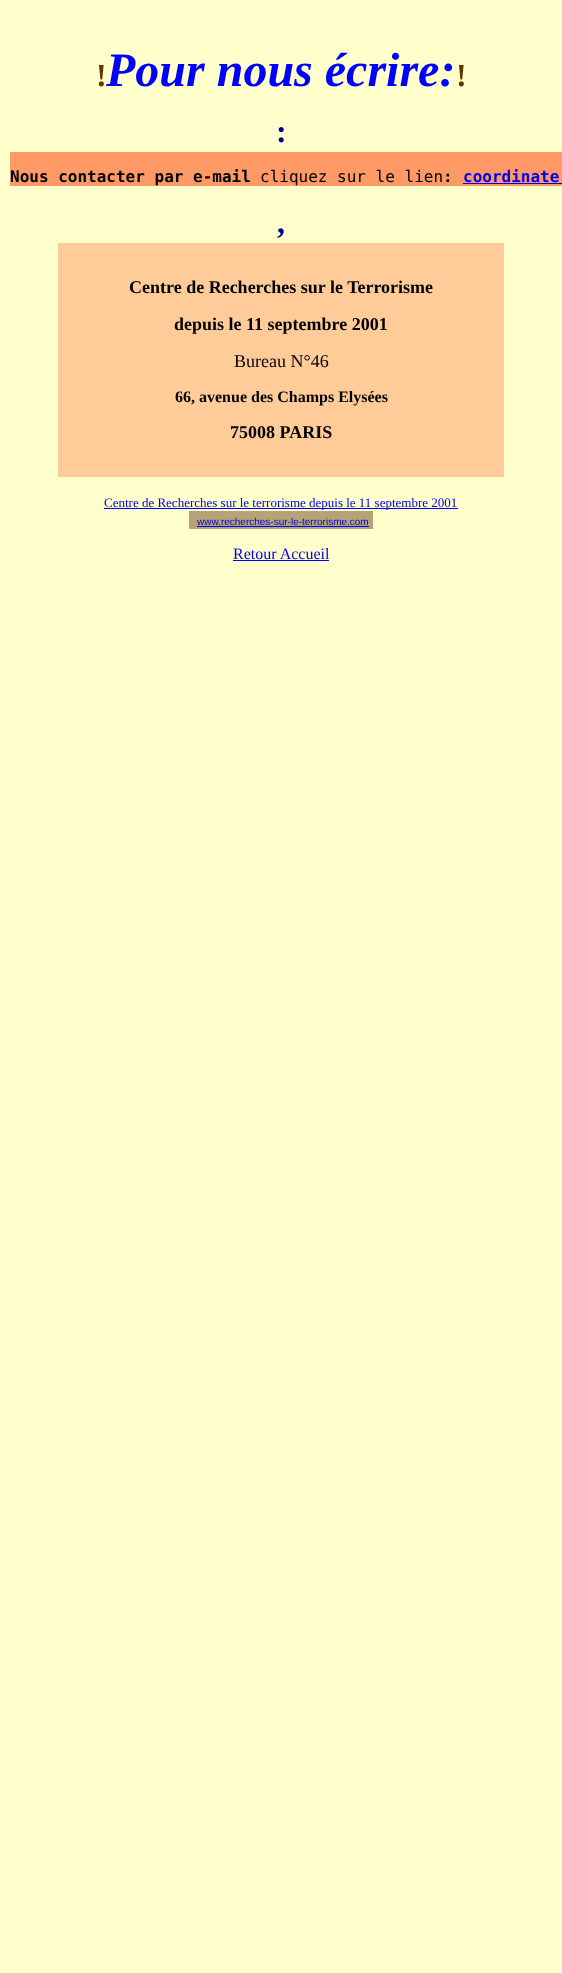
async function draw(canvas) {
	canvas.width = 562;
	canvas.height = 1973;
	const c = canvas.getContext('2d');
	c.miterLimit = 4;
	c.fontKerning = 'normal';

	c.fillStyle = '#ffc';
	c.fillRect(0, 0, 562, 1973);
	c.font = 'bold 32px Liberation Serif';
	c.fillStyle = '#630';
	c.fillText('!', 96, 86);
	c.font = 'italic bold 48px Liberation Serif';
	c.fillStyle = '#00f';
	c.fillText('Pour nous écrire:', 106, 86);
	c.font = 'bold 32px Liberation Serif';
	c.fillStyle = '#630';
	c.fillText('!', 456, 86);
	c.fillStyle = '#009';
	c.fillText(':', 276, 142);
	c.fillStyle = '#f96';
	c.fillRect(10, 152, 552, 34);
	c.font = 'bold 16px DejaVu Sans Mono';
	c.fillStyle = '#000';
	c.fillText('Nous contacter par e-mail', 10, 182);
	c.font = '16px DejaVu Sans Mono';
	c.fillText('cliquez sur le lien', 260, 182);
	c.font = 'bold 16px DejaVu Sans Mono';
	c.fillText(':', 443, 182);
	c.fillStyle = '#00e';
	c.fillText('coordinate', 463, 182);
	c.fillRect(463, 183, 99, 1);
	c.font = 'bold 32px Liberation Serif';
	c.fillStyle = '#009';
	c.fillText(',', 277, 233);
	c.fillStyle = '#fc9';
	c.fillRect(58, 243, 446, 234);
	c.font = 'bold 18px Liberation Serif';
	c.fillStyle = '#000';
	c.fillText('Centre de Recherches sur le Terrorisme', 129, 293);
	c.fillText('depuis le 11 septembre 2001', 174, 330);
	c.font = '18px Liberation Serif';
	c.fillText('Bureau N°46', 234, 367);
	c.font = 'bold 16px Liberation Serif';
	c.fillText('66, avenue des Champs Elysées', 175, 402);
	c.font = 'bold 18px Liberation Serif';
	c.fillText('75008 PARIS', 230, 438);
	c.fillStyle = '#00e';
	c.fillRect(104, 508, 354, 1);
	c.font = '13px Liberation Serif';
	c.fillText('Centre de Recherches sur le terrorisme depuis le 11 septembre 2001', 104, 507);
	c.fillStyle = '#b5a377';
	c.fillRect(189, 511, 184, 18);
	c.font = '10px Liberation Sans';
	c.fillStyle = '#00e';
	c.fillText('www.recherches-sur-le-terrorisme.com', 197, 525);
	c.fillRect(197, 526, 172, 1);
	c.font = '16px Liberation Serif';
	c.fillText('Retour Accueil', 233, 559);
	c.fillRect(233, 560, 96, 1);
}

draw(document.querySelector('canvas'));
